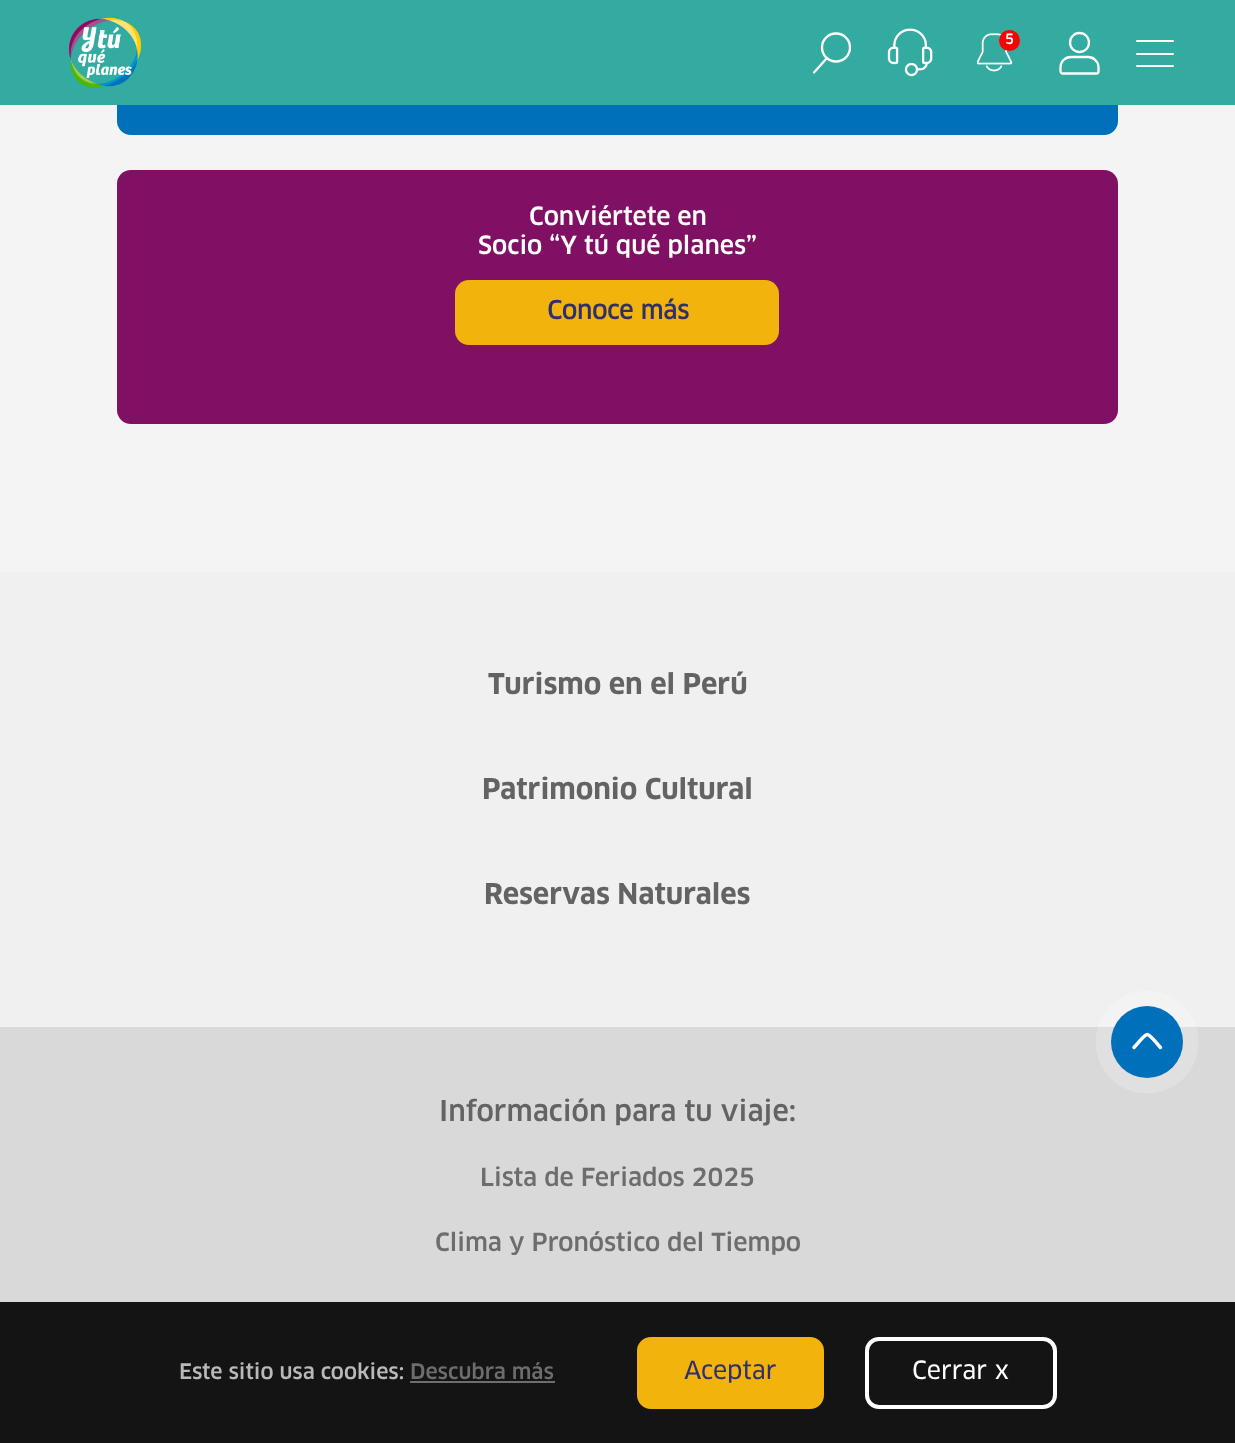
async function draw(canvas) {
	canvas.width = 1235;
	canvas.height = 1443;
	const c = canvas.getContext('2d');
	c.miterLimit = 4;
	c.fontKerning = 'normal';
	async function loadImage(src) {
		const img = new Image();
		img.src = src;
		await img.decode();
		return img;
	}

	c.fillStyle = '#f0f0f0';
	c.fillRect(0, 0, 1235, 1443);
	c.fillStyle = '#f4f4f4';
	c.fillRect(0, 105, 1235, 467);
	c.fillStyle = '#0070ba';
	c.beginPath();
	c.roundRect(117, -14, 1001, 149, 14);
	c.fill();
	c.fillStyle = '#33aba0';
	c.fillRect(0, 0, 1235, 105);
	c.drawImage(await loadImage('img1.png'), 69, 17, 72, 71);
	c.beginPath();
	c.moveTo(827, 58);
	c.lineTo(814, 72.5);
	c.strokeStyle = '#fff';
	c.lineWidth = 2.3;
	c.lineCap = 'round';
	c.stroke();
	c.beginPath();
	c.arc(836, 47.5, 14, 0, 2 * Math.PI);
	c.stroke();
	c.drawImage(await loadImage('img2.png'), 887, 28, 46, 49);
	c.drawImage(await loadImage('img3.png'), 977, 33, 36, 39);
	c.fillStyle = '#f00';
	c.beginPath();
	c.arc(1009.5, 40.5, 10.5, 0, 2 * Math.PI);
	c.fill();
	c.font = '500 14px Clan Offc';
	c.fillStyle = '#fff';
	c.fillText('5', 1005, 44);
	c.beginPath();
	c.arc(1079.5, 42.5, 9.5, 0, 2 * Math.PI);
	c.stroke();
	c.beginPath();
	c.moveTo(1060.5, 67.5);
	c.bezierCurveTo(1060.5, 61.5, 1065, 57, 1071, 57);
	c.lineTo(1088, 57);
	c.bezierCurveTo(1093.5, 57, 1098.5, 61.5, 1098.5, 67.5);
	c.lineTo(1098.5, 71.5);
	c.bezierCurveTo(1098.5, 72.5, 1097.5, 73.5, 1096.5, 73.5);
	c.lineTo(1062, 73.5);
	c.bezierCurveTo(1061.5, 73.5, 1060.5, 72.5, 1060.5, 71.5);
	c.closePath();
	c.lineCap = 'butt';
	c.stroke();
	c.beginPath();
	c.roundRect(1136, 40, 38, 2, 1);
	c.fill();
	c.beginPath();
	c.roundRect(1136, 53, 38, 2, 1);
	c.fill();
	c.beginPath();
	c.roundRect(1136, 65, 38, 2, 1);
	c.fill();
	c.fillStyle = '#801063';
	c.beginPath();
	c.roundRect(117, 170, 1001, 254, 14);
	c.fill();
	c.font = '500 24.5px Clan Offc';
	c.fillStyle = '#fff';
	c.fillText('Conviértete en', 529, 225);
	c.fillText('Socio “Y tú qué planes”', 478, 254);
	c.fillStyle = '#f2b30c';
	c.beginPath();
	c.roundRect(455, 280, 324, 65, 14);
	c.fill();
	c.font = 'bold 24.5px "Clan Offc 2"';
	c.fillStyle = '#2f2f6d';
	c.fillText('Conoce más', 547, 319);
	c.font = 'bold 28px Clan Offc';
	c.fillStyle = '#636363';
	for (const [text, x, y] of [
		['Turismo en el Perú', 488, 694],
		['Patrimonio Cultural', 482, 799],
		['Reservas Naturales', 484, 904],
	]) {
		c.fillText(text, x, y);
	}
	c.fillStyle = '#d9d9d9';
	c.fillRect(0, 1027, 1235, 275);
	c.font = '500 28px Clan Offc';
	c.fillStyle = '#636363';
	c.fillText('Información para tu viaje:', 439, 1121);
	c.font = '500 24.5px Clan Offc';
	c.fillStyle = '#6d6d6d';
	c.fillText('Lista de Feriados 2025', 480, 1186);
	c.fillText('Clima y Pronóstico del Tiempo', 435, 1251);
	c.save();
	c.beginPath();
	c.rect(1096, 991, 103, 103);
	c.clip();
	c.fillStyle = '#ffffff33';
	c.beginPath();
	c.arc(1147, 1042, 51.5, 0, 2 * Math.PI);
	c.fill();
	c.restore();
	c.fillStyle = '#0070ba';
	c.beginPath();
	c.arc(1147, 1042, 36, 0, 2 * Math.PI);
	c.fill();
	c.beginPath();
	c.moveTo(1160.5, 1047.5);
	c.bezierCurveTo(1145, 1030, 1149.5, 1030, 1134, 1047.5);
	c.lineWidth = 3.5;
	c.lineCap = 'round';
	c.stroke();
	c.fillStyle = '#141414';
	c.fillRect(0, 1302, 1235, 141);
	c.font = '500 21px Clan Offc';
	c.fillStyle = '#b9b9b9';
	c.fillText('Este sitio usa cookies:', 179, 1379);
	c.fillStyle = '#6d6d6d';
	c.fillText('Descubra más', 410, 1379);
	c.fillStyle = '#6e6e6e';
	c.fillRect(410, 1381, 145, 2);
	c.fillStyle = '#f2b30c';
	c.beginPath();
	c.roundRect(639, 1339, 183, 68, 12);
	c.fill();
	c.strokeStyle = '#f2b30c';
	c.lineWidth = 4;
	c.stroke();
	c.font = '24.5px Clan Offc';
	c.fillStyle = '#2f2f6d';
	c.fillText('Aceptar', 684, 1379);
	c.beginPath();
	c.roundRect(867, 1339, 188, 68, 12);
	c.strokeStyle = '#fff';
	c.stroke();
	c.fillStyle = '#fff';
	c.fillText('Cerrar x', 912, 1379);
}

draw(document.querySelector('canvas'));
